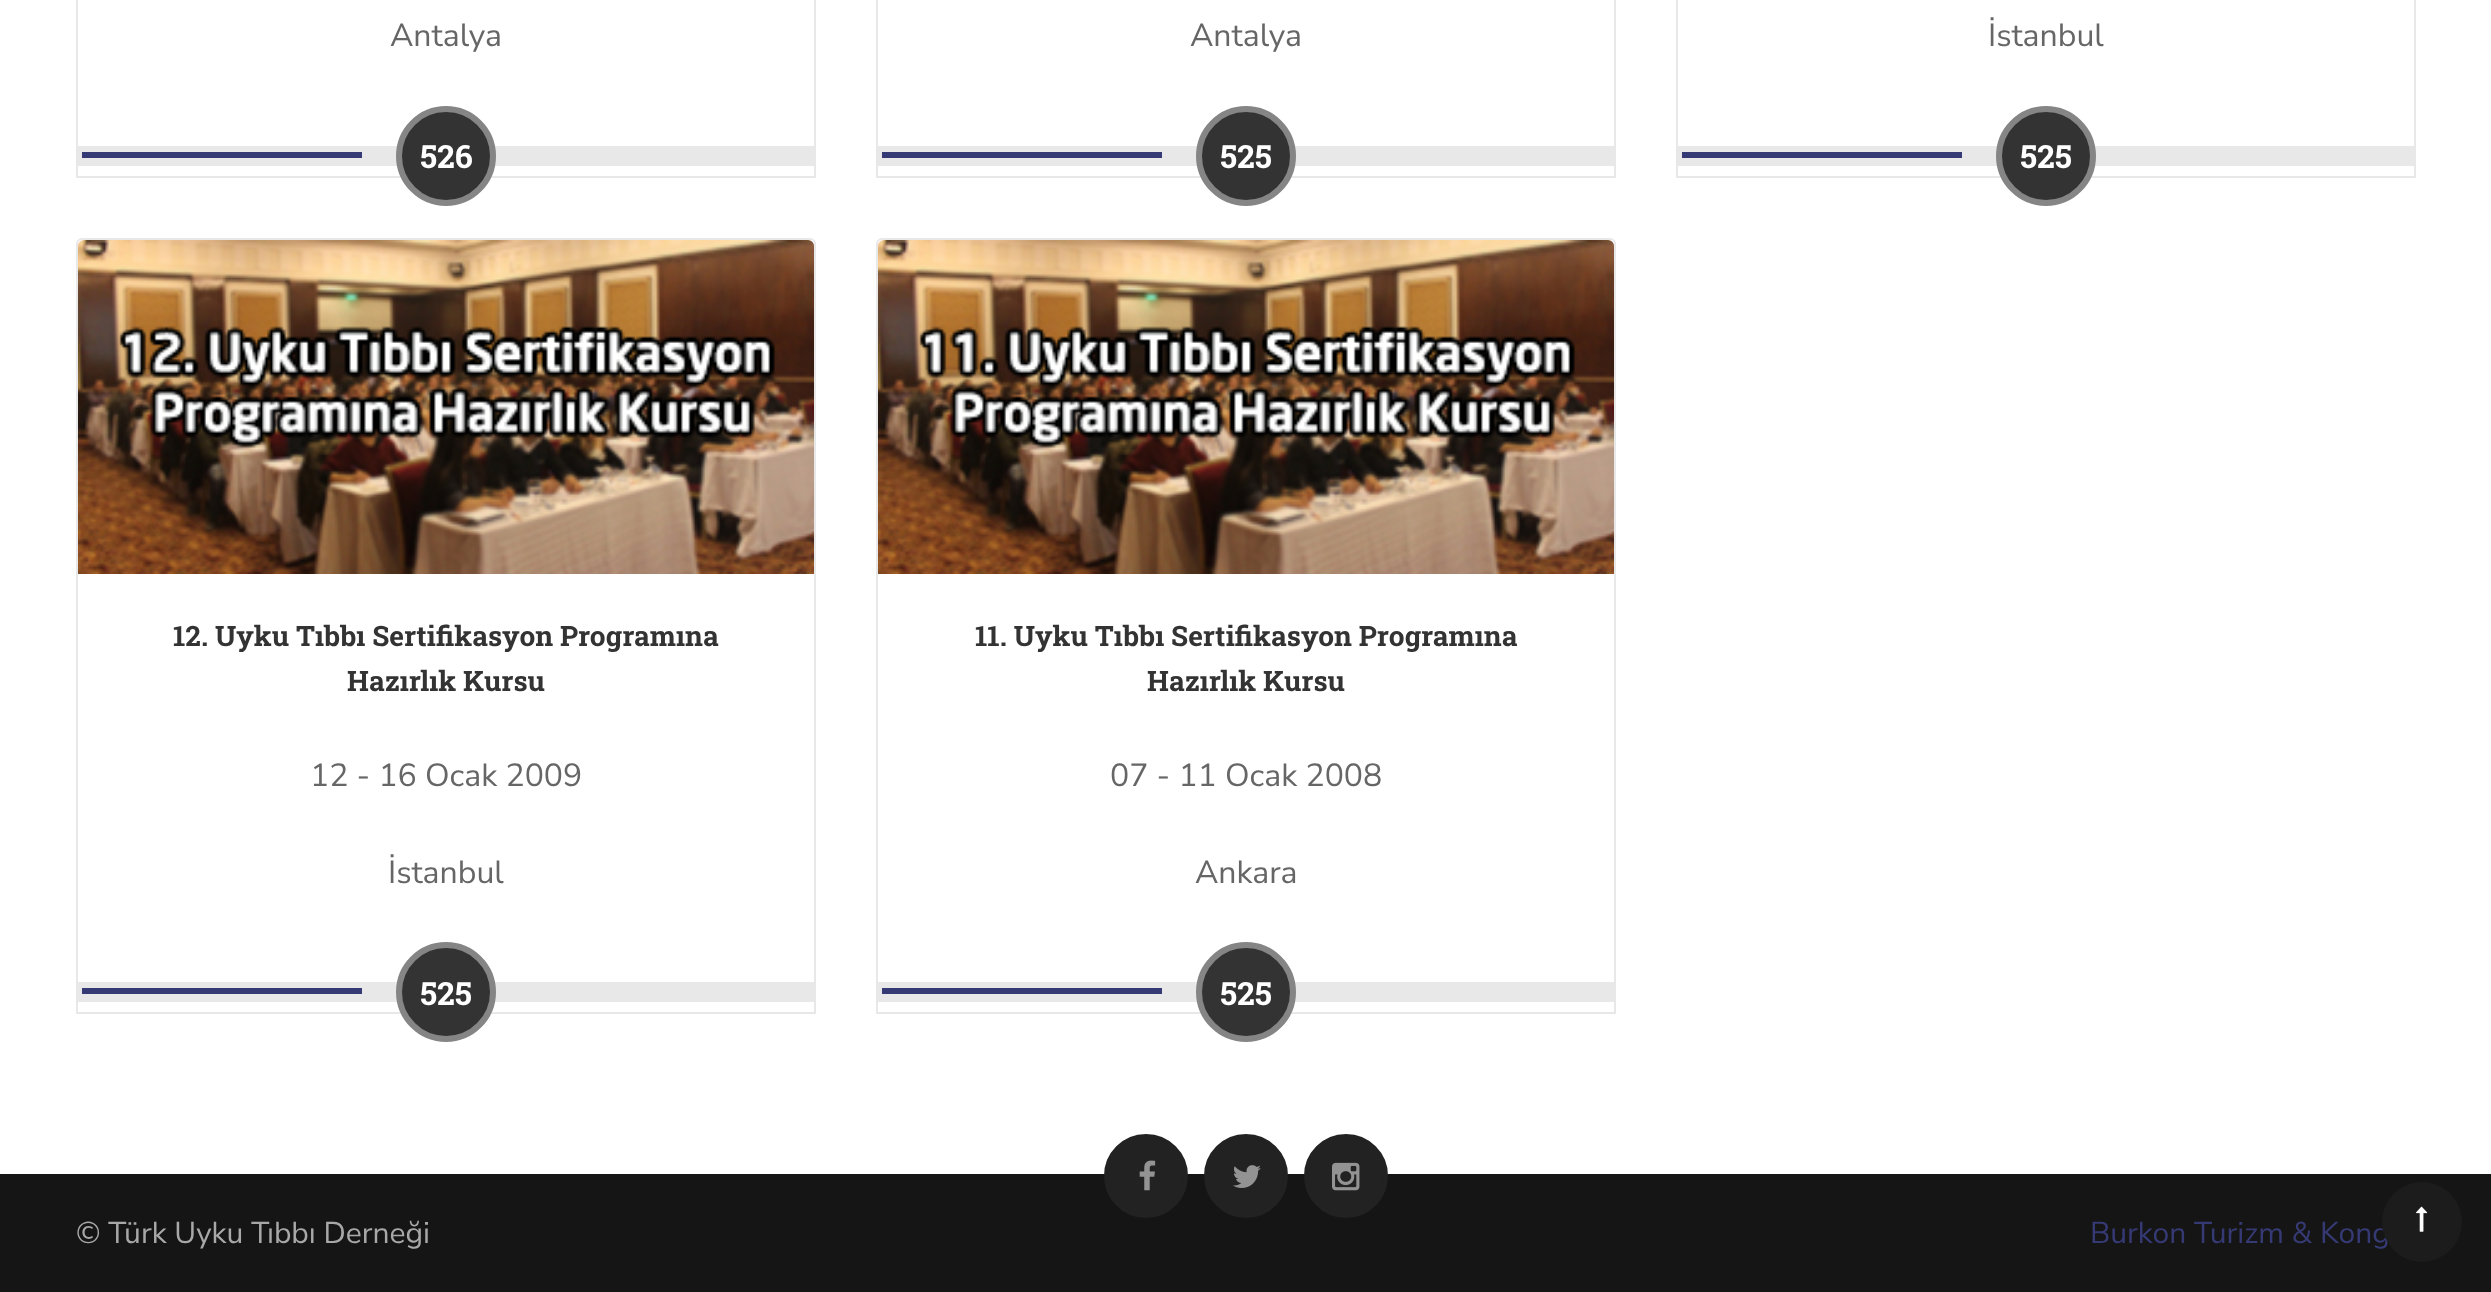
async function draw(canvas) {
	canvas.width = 2491;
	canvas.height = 1292;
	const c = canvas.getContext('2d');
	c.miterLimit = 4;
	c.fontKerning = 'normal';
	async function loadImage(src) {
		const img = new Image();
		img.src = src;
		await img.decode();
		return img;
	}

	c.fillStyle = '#fff';
	c.fillRect(0, 0, 2491, 1292);
	c.strokeStyle = '#e8e8e8';
	c.lineWidth = 2;
	c.strokeRect(77, -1, 738, 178);
	c.font = '32px Nunito Sans';
	c.fillStyle = '#666';
	c.fillText('Antalya', 390, 46);
	c.fillStyle = '#e8e8e8';
	c.fillRect(78, 146, 736, 20);
	c.fillStyle = '#333';
	c.beginPath();
	c.arc(446, 156, 47, 0, 2 * Math.PI);
	c.fill();
	c.strokeStyle = '#858585';
	c.lineWidth = 6;
	c.stroke();
	c.font = 'bold 32px Roboto Slab';
	c.fillStyle = '#fff';
	c.fillText('526', 420, 168);
	c.fillStyle = '#363a74';
	c.fillRect(82, 152, 280, 6);
	c.strokeStyle = '#e8e8e8';
	c.lineWidth = 2;
	c.strokeRect(877, -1, 738, 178);
	c.font = '32px Nunito Sans';
	c.fillStyle = '#666';
	c.fillText('Antalya', 1190, 46);
	c.fillStyle = '#e8e8e8';
	c.fillRect(878, 146, 736, 20);
	c.fillStyle = '#333';
	c.beginPath();
	c.arc(1246, 156, 47, 0, 2 * Math.PI);
	c.fill();
	c.strokeStyle = '#858585';
	c.lineWidth = 6;
	c.stroke();
	c.font = 'bold 32px Roboto Slab';
	c.fillStyle = '#fff';
	c.fillText('525', 1220, 168);
	c.fillStyle = '#363a74';
	c.fillRect(882, 152, 280, 6);
	c.strokeStyle = '#e8e8e8';
	c.lineWidth = 2;
	c.strokeRect(1677, -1, 738, 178);
	c.font = '32px Nunito Sans';
	c.fillStyle = '#666';
	c.fillText('İstanbul', 1988, 46);
	c.fillStyle = '#e8e8e8';
	c.fillRect(1678, 146, 736, 20);
	c.fillStyle = '#333';
	c.beginPath();
	c.arc(2046, 156, 47, 0, 2 * Math.PI);
	c.fill();
	c.strokeStyle = '#858585';
	c.lineWidth = 6;
	c.stroke();
	c.font = 'bold 32px Roboto Slab';
	c.fillStyle = '#fff';
	c.fillText('525', 2020, 168);
	c.fillStyle = '#363a74';
	c.fillRect(1682, 152, 280, 6);
	c.beginPath();
	c.roundRect(77, 239, 738, 774, [5, 5, 0, 0]);
	c.strokeStyle = '#e8e8e8';
	c.lineWidth = 2;
	c.stroke();
	c.drawImage(await loadImage('img1.png'), 78, 240, 736, 334);
	c.font = 'bold 28px Roboto Slab';
	c.fillStyle = '#333';
	c.fillText('12. Uyku Tıbbı Sertifikasyon Programına', 173, 646);
	c.fillText('Hazırlık Kursu', 347, 691);
	c.font = '32px Nunito Sans';
	c.fillStyle = '#666';
	c.fillText('12 - 16 Ocak 2009', 310, 786);
	c.fillText('İstanbul', 388, 883);
	c.fillStyle = '#e8e8e8';
	c.fillRect(78, 982, 736, 20);
	c.fillStyle = '#333';
	c.beginPath();
	c.arc(446, 992, 47, 0, 2 * Math.PI);
	c.fill();
	c.strokeStyle = '#858585';
	c.lineWidth = 6;
	c.stroke();
	c.font = 'bold 32px Roboto Slab';
	c.fillStyle = '#fff';
	c.fillText('525', 420, 1005);
	c.fillStyle = '#363a74';
	c.fillRect(82, 988, 280, 6);
	c.beginPath();
	c.roundRect(877, 239, 738, 774, [5, 5, 0, 0]);
	c.strokeStyle = '#e8e8e8';
	c.lineWidth = 2;
	c.stroke();
	c.drawImage(await loadImage('img2.png'), 878, 240, 736, 334);
	c.font = 'bold 28px Roboto Slab';
	c.fillStyle = '#333';
	c.fillText('11. Uyku Tıbbı Sertifikasyon Programına', 975, 646);
	c.fillText('Hazırlık Kursu', 1147, 691);
	c.font = '32px Nunito Sans';
	c.fillStyle = '#666';
	c.fillText('07 - 11 Ocak 2008', 1110, 786);
	c.fillText('Ankara', 1195, 883);
	c.fillStyle = '#e8e8e8';
	c.fillRect(878, 982, 736, 20);
	c.fillStyle = '#333';
	c.beginPath();
	c.arc(1246, 992, 47, 0, 2 * Math.PI);
	c.fill();
	c.strokeStyle = '#858585';
	c.lineWidth = 6;
	c.stroke();
	c.font = 'bold 32px Roboto Slab';
	c.fillStyle = '#fff';
	c.fillText('525', 1220, 1005);
	c.fillStyle = '#363a74';
	c.fillRect(882, 988, 280, 6);
	c.fillStyle = '#151515';
	c.fillRect(0, 1174, 2491, 118);
	c.fillStyle = '#222';
	c.beginPath();
	c.arc(1146, 1176, 40, 0, 2 * Math.PI);
	c.fill();
	c.strokeStyle = '#222';
	c.lineWidth = 4;
	c.stroke();
	c.drawImage(await loadImage('img3.png'), 1139, 1160, 17, 31);
	c.beginPath();
	c.arc(1246, 1176, 40, 0, 2 * Math.PI);
	c.fill();
	c.stroke();
	c.drawImage(await loadImage('img4.png'), 1233, 1165, 28, 23);
	c.beginPath();
	c.arc(1346, 1176, 40, 0, 2 * Math.PI);
	c.fill();
	c.stroke();
	c.drawImage(await loadImage('img5.png'), 1332, 1162, 28, 29);
	c.font = '30px Nunito Sans';
	c.fillStyle = '#a8a8a8';
	c.fillText('© Türk Uyku Tıbbı Derneği', 76, 1243);
	c.fillStyle = '#363a74';
	c.fillText('Burkon Turizm & Kong', 2090, 1243);
	c.fillStyle = '#1c1c1c';
	c.beginPath();
	c.arc(2422, 1222, 40, 0, 2 * Math.PI);
	c.fill();
	c.drawImage(await loadImage('img6.png'), 2416, 1206, 12, 26);
}

draw(document.querySelector('canvas'));
